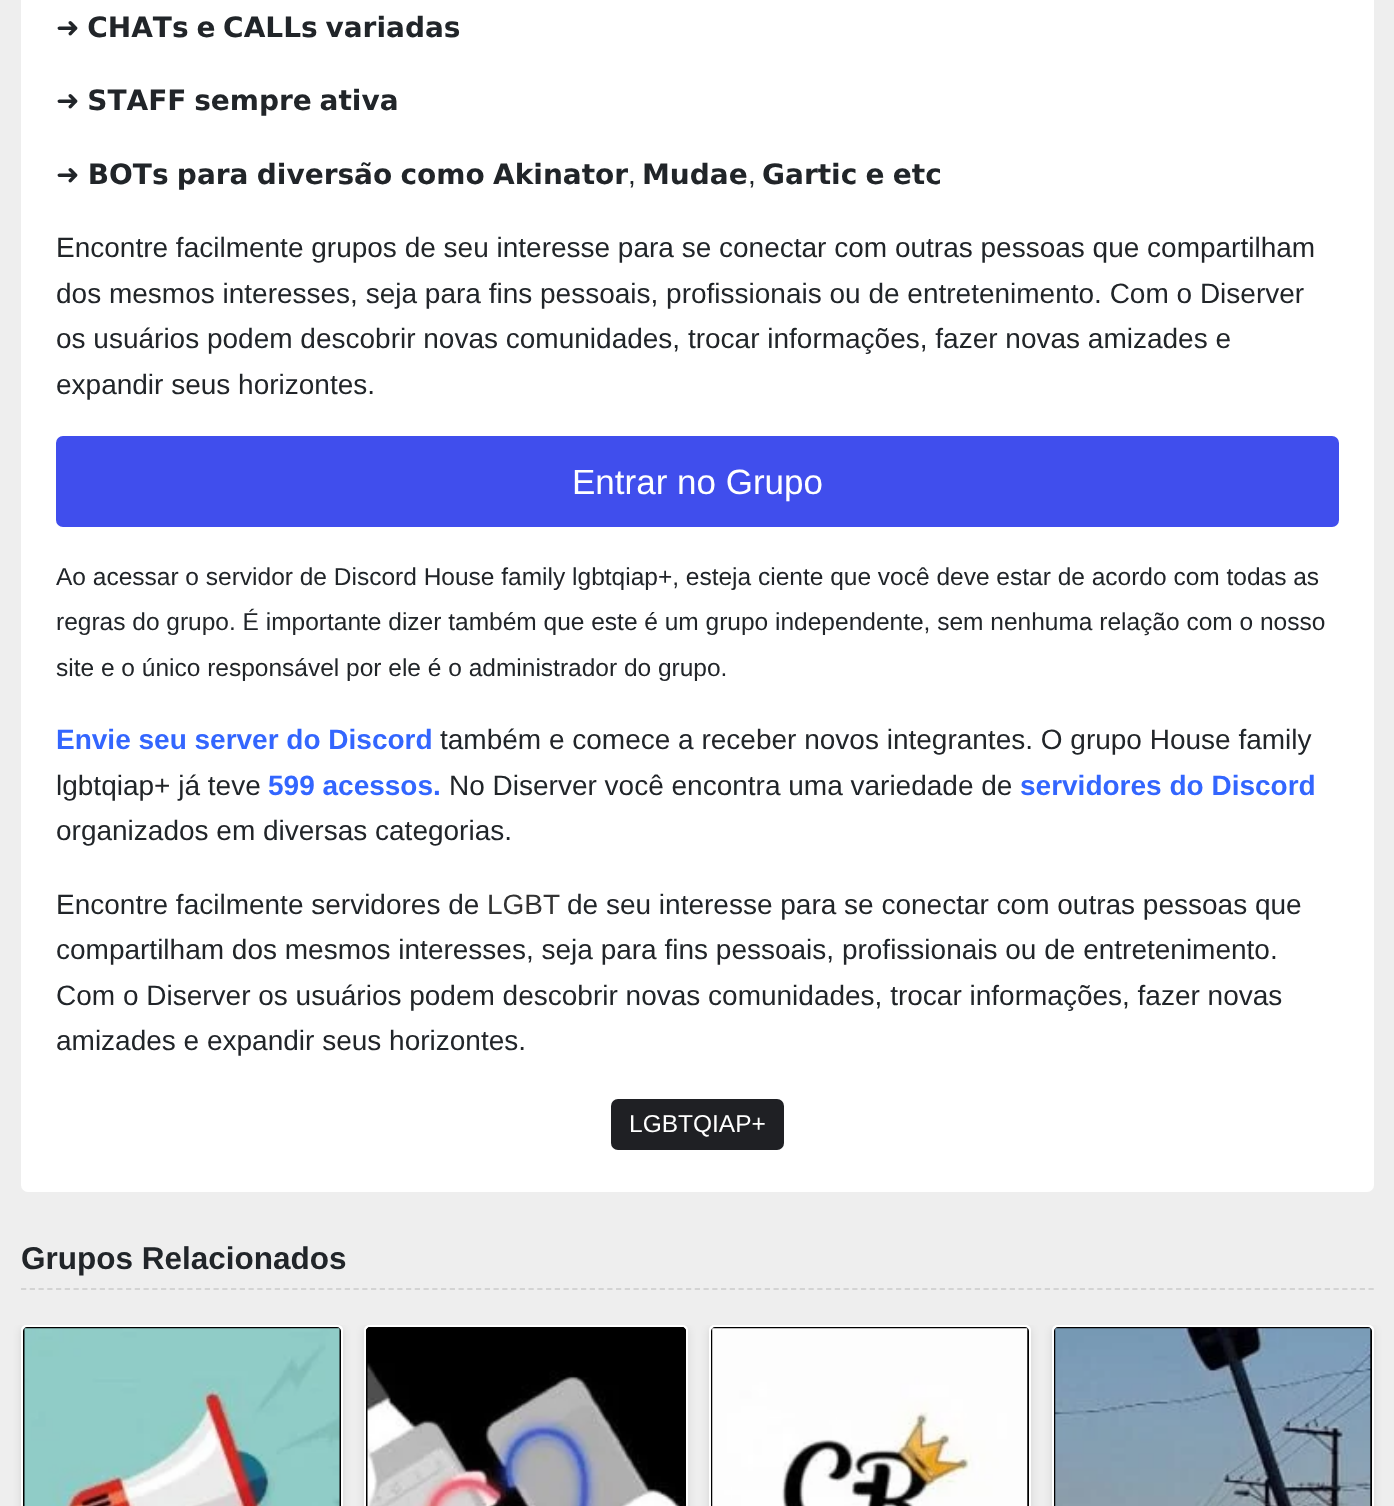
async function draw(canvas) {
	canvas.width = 1394;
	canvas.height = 1506;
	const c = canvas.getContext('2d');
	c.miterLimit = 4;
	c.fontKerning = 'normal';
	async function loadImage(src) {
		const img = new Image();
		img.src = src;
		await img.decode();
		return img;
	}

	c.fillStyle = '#eee';
	c.fillRect(0, 0, 1394, 1506);
	c.fillStyle = '#fff';
	c.beginPath();
	c.roundRect(21, -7, 1353, 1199, 7);
	c.fill();
	c.wordSpacing = '-2px';
	c.font = 'bold 28px DejaVu Sans';
	c.fillStyle = '#212529';
	c.fillText('➜ 𝗖𝗛𝗔𝗧𝘀 𝗲 𝗖𝗔𝗟𝗟𝘀 𝘃𝗮𝗿𝗶𝗮𝗱𝗮𝘀', 56, 37);
	c.fillText('➜ 𝗦𝗧𝗔𝗙𝗙 𝘀𝗲𝗺𝗽𝗿𝗲 𝗮𝘁𝗶𝘃𝗮', 56, 110);
	c.wordSpacing = '-1.5px';
	c.fillText('➜ 𝗕𝗢𝗧𝘀 𝗽𝗮𝗿𝗮 𝗱𝗶𝘃𝗲𝗿𝘀𝗮̃𝗼 𝗰𝗼𝗺𝗼 𝗔𝗸𝗶𝗻𝗮𝘁𝗼𝗿', 56, 184);
	c.wordSpacing = '0px';
	c.font = '28px Liberation Sans';
	c.fillText(',', 628, 184);
	c.font = 'bold 28px DejaVu Sans';
	c.fillText('𝗠𝘂𝗱𝗮𝗲', 642, 184);
	c.font = '28px Liberation Sans';
	c.fillText(',', 748, 184);
	c.wordSpacing = '-1.5px';
	c.font = 'bold 28px DejaVu Sans';
	c.fillText('𝗚𝗮𝗿𝘁𝗶𝗰 𝗲 𝗲𝘁𝗰', 762, 184);
	c.wordSpacing = '0px';
	c.font = '28px Liberation Sans';
	for (const [text, x, y] of [
		['Encontre facilmente grupos de seu interesse para se conectar com outras pessoas que compartilham', 56, 257],
		['dos mesmos interesses, seja para fins pessoais, profissionais ou de entretenimento. Com o Diserver', 56, 303],
		['os usuários podem descobrir novas comunidades, trocar informações, fazer novas amizades e', 56, 348],
		['expandir seus horizontes.', 56, 394],
	]) {
		c.fillText(text, x, y);
	}
	c.fillStyle = '#404eed';
	c.beginPath();
	c.roundRect(57, 437, 1281, 89, 6);
	c.fill();
	c.strokeStyle = '#404eed';
	c.lineWidth = 2;
	c.stroke();
	c.font = '35px Liberation Sans';
	c.fillStyle = '#fff';
	c.fillText('Entrar no Grupo', 572, 494);
	c.font = '24.5px Liberation Sans';
	c.fillStyle = '#212529';
	for (const [text, x, y] of [
		['Ao acessar o servidor de Discord House family lgbtqiap+, esteja ciente que você deve estar de acordo com todas as', 56, 585],
		['regras do grupo. É importante dizer também que este é um grupo independente, sem nenhuma relação com o nosso', 56, 630],
		['site e o único responsável por ele é o administrador do grupo.', 56, 676],
	]) {
		c.fillText(text, x, y);
	}
	c.font = 'bold 28px Liberation Sans';
	c.fillStyle = '#36f';
	c.fillText('Envie seu server do Discord', 56, 749);
	c.font = '28px Liberation Sans';
	c.fillStyle = '#212529';
	c.fillText('também e comece a receber novos integrantes. O grupo House family', 440, 749);
	c.fillText('lgbtqiap+ já teve', 56, 795);
	c.font = 'bold 28px Liberation Sans';
	c.fillStyle = '#36f';
	c.fillText('599 acessos.', 268, 795);
	c.font = '28px Liberation Sans';
	c.fillStyle = '#212529';
	c.fillText('No Diserver você encontra uma variedade de', 449, 795);
	c.font = 'bold 28px Liberation Sans';
	c.fillStyle = '#36f';
	c.fillText('servidores do Discord', 1020, 795);
	c.font = '28px Liberation Sans';
	c.fillStyle = '#212529';
	c.fillText('organizados em diversas categorias.', 56, 840);
	c.fillText('Encontre facilmente servidores de', 56, 914);
	c.fillStyle = '#333';
	c.fillText('LGBT', 487, 914);
	c.fillStyle = '#212529';
	for (const [text, x, y] of [
		['de seu interesse para se conectar com outras pessoas que', 567, 914],
		['compartilham dos mesmos interesses, seja para fins pessoais, profissionais ou de entretenimento.', 56, 959],
		['Com o Diserver os usuários podem descobrir novas comunidades, trocar informações, fazer novas', 56, 1005],
		['amizades e expandir seus horizontes.', 56, 1050],
	]) {
		c.fillText(text, x, y);
	}
	c.fillStyle = '#1f2024';
	c.beginPath();
	c.roundRect(611, 1099, 173, 51, 7);
	c.fill();
	c.font = '24.5px Liberation Sans';
	c.fillStyle = '#fff';
	c.fillText('LGBTQIAP+', 629, 1132);
	c.beginPath();
	c.moveTo(21, 1289);
	c.lineTo(1374, 1289);
	c.strokeStyle = '#d3d3d3';
	c.lineWidth = 1.8;
	c.setLineDash([5.25, 3.5]);
	c.stroke();
	c.font = 'bold 31.5px Liberation Sans';
	c.fillStyle = '#212529';
	c.fillText('Grupos Relacionados', 21, 1269);
	c.save();
	c.beginPath();
	c.rect(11, 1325, 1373, 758);
	c.clip();
	c.fillStyle = '#0000001a';
	c.filter = 'blur(4.5px)';
	c.beginPath();
	c.roundRect(21, 1327, 322, 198, 5);
	c.fill();
	c.filter = 'none';
	c.restore();
	c.fillStyle = '#fff';
	c.beginPath();
	c.roundRect(21, 1325, 322, 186, 5);
	c.fill();
	c.fillStyle = '#000';
	c.beginPath();
	c.moveTo(27, 1327);
	c.bezierCurveTo(25, 1327, 23, 1329, 23, 1331);
	c.lineTo(23, 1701);
	c.lineTo(341, 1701);
	c.lineTo(341, 1331);
	c.bezierCurveTo(341, 1329, 339, 1327, 337, 1327);
	c.closePath();
	c.moveTo(25, 1329);
	c.lineTo(25, 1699);
	c.lineTo(339, 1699);
	c.lineTo(339, 1329);
	c.closePath();
	c.fill('evenodd');
	c.drawImage(await loadImage('img1.png'), 24, 1328, 316, 178);
	c.save();
	c.beginPath();
	c.rect(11, 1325, 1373, 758);
	c.clip();
	c.fillStyle = '#0000001a';
	c.filter = 'blur(4.5px)';
	c.beginPath();
	c.roundRect(364, 1327, 324, 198, 5);
	c.fill();
	c.filter = 'none';
	c.restore();
	c.fillStyle = '#fff';
	c.beginPath();
	c.roundRect(364, 1325, 324, 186, 5);
	c.fill();
	c.fillStyle = '#000';
	c.beginPath();
	c.moveTo(370, 1327);
	c.lineTo(682, 1327);
	c.bezierCurveTo(684, 1327, 686, 1329, 686, 1331);
	c.lineTo(686, 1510);
	c.lineTo(366, 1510);
	c.lineTo(366, 1331);
	c.bezierCurveTo(366, 1329, 368, 1327, 370, 1327);
	c.closePath();
	c.fill();
	c.beginPath();
	c.moveTo(370, 1327);
	c.bezierCurveTo(368, 1327, 366, 1329, 366, 1331);
	c.lineTo(366, 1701);
	c.lineTo(686, 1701);
	c.lineTo(686, 1331);
	c.bezierCurveTo(686, 1329, 684, 1327, 682, 1327);
	c.closePath();
	c.moveTo(368, 1329);
	c.lineTo(368, 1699);
	c.lineTo(684, 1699);
	c.lineTo(684, 1329);
	c.closePath();
	c.fill('evenodd');
	c.drawImage(await loadImage('img2.png'), 367, 1363, 317, 143);
	c.save();
	c.beginPath();
	c.rect(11, 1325, 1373, 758);
	c.clip();
	c.fillStyle = '#0000001a';
	c.filter = 'blur(4.5px)';
	c.beginPath();
	c.roundRect(709, 1327, 322, 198, 5);
	c.fill();
	c.filter = 'none';
	c.restore();
	c.fillStyle = '#fff';
	c.beginPath();
	c.roundRect(709, 1325, 322, 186, 5);
	c.fill();
	c.fillStyle = '#000';
	c.beginPath();
	c.moveTo(715, 1327);
	c.bezierCurveTo(713, 1327, 711, 1329, 711, 1331);
	c.lineTo(711, 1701);
	c.lineTo(1029, 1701);
	c.lineTo(1029, 1331);
	c.bezierCurveTo(1029, 1329, 1027, 1327, 1025, 1327);
	c.closePath();
	c.moveTo(713, 1329);
	c.lineTo(713, 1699);
	c.lineTo(1027, 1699);
	c.lineTo(1027, 1329);
	c.closePath();
	c.fill('evenodd');
	c.drawImage(await loadImage('img3.png'), 712, 1328, 316, 178);
	c.save();
	c.beginPath();
	c.rect(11, 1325, 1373, 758);
	c.clip();
	c.fillStyle = '#0000001a';
	c.filter = 'blur(4.5px)';
	c.beginPath();
	c.roundRect(1052, 1327, 322, 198, 5);
	c.fill();
	c.filter = 'none';
	c.restore();
	c.fillStyle = '#fff';
	c.beginPath();
	c.roundRect(1052, 1325, 322, 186, 5);
	c.fill();
	c.fillStyle = '#000';
	c.beginPath();
	c.moveTo(1058, 1327);
	c.bezierCurveTo(1056, 1327, 1054, 1329, 1054, 1331);
	c.lineTo(1054, 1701);
	c.lineTo(1372, 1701);
	c.lineTo(1372, 1331);
	c.bezierCurveTo(1372, 1329, 1370, 1327, 1368, 1327);
	c.closePath();
	c.moveTo(1056, 1329);
	c.lineTo(1056, 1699);
	c.lineTo(1370, 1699);
	c.lineTo(1370, 1329);
	c.closePath();
	c.fill('evenodd');
	c.drawImage(await loadImage('img4.png'), 1055, 1328, 316, 178);
}

draw(document.querySelector('canvas'));
